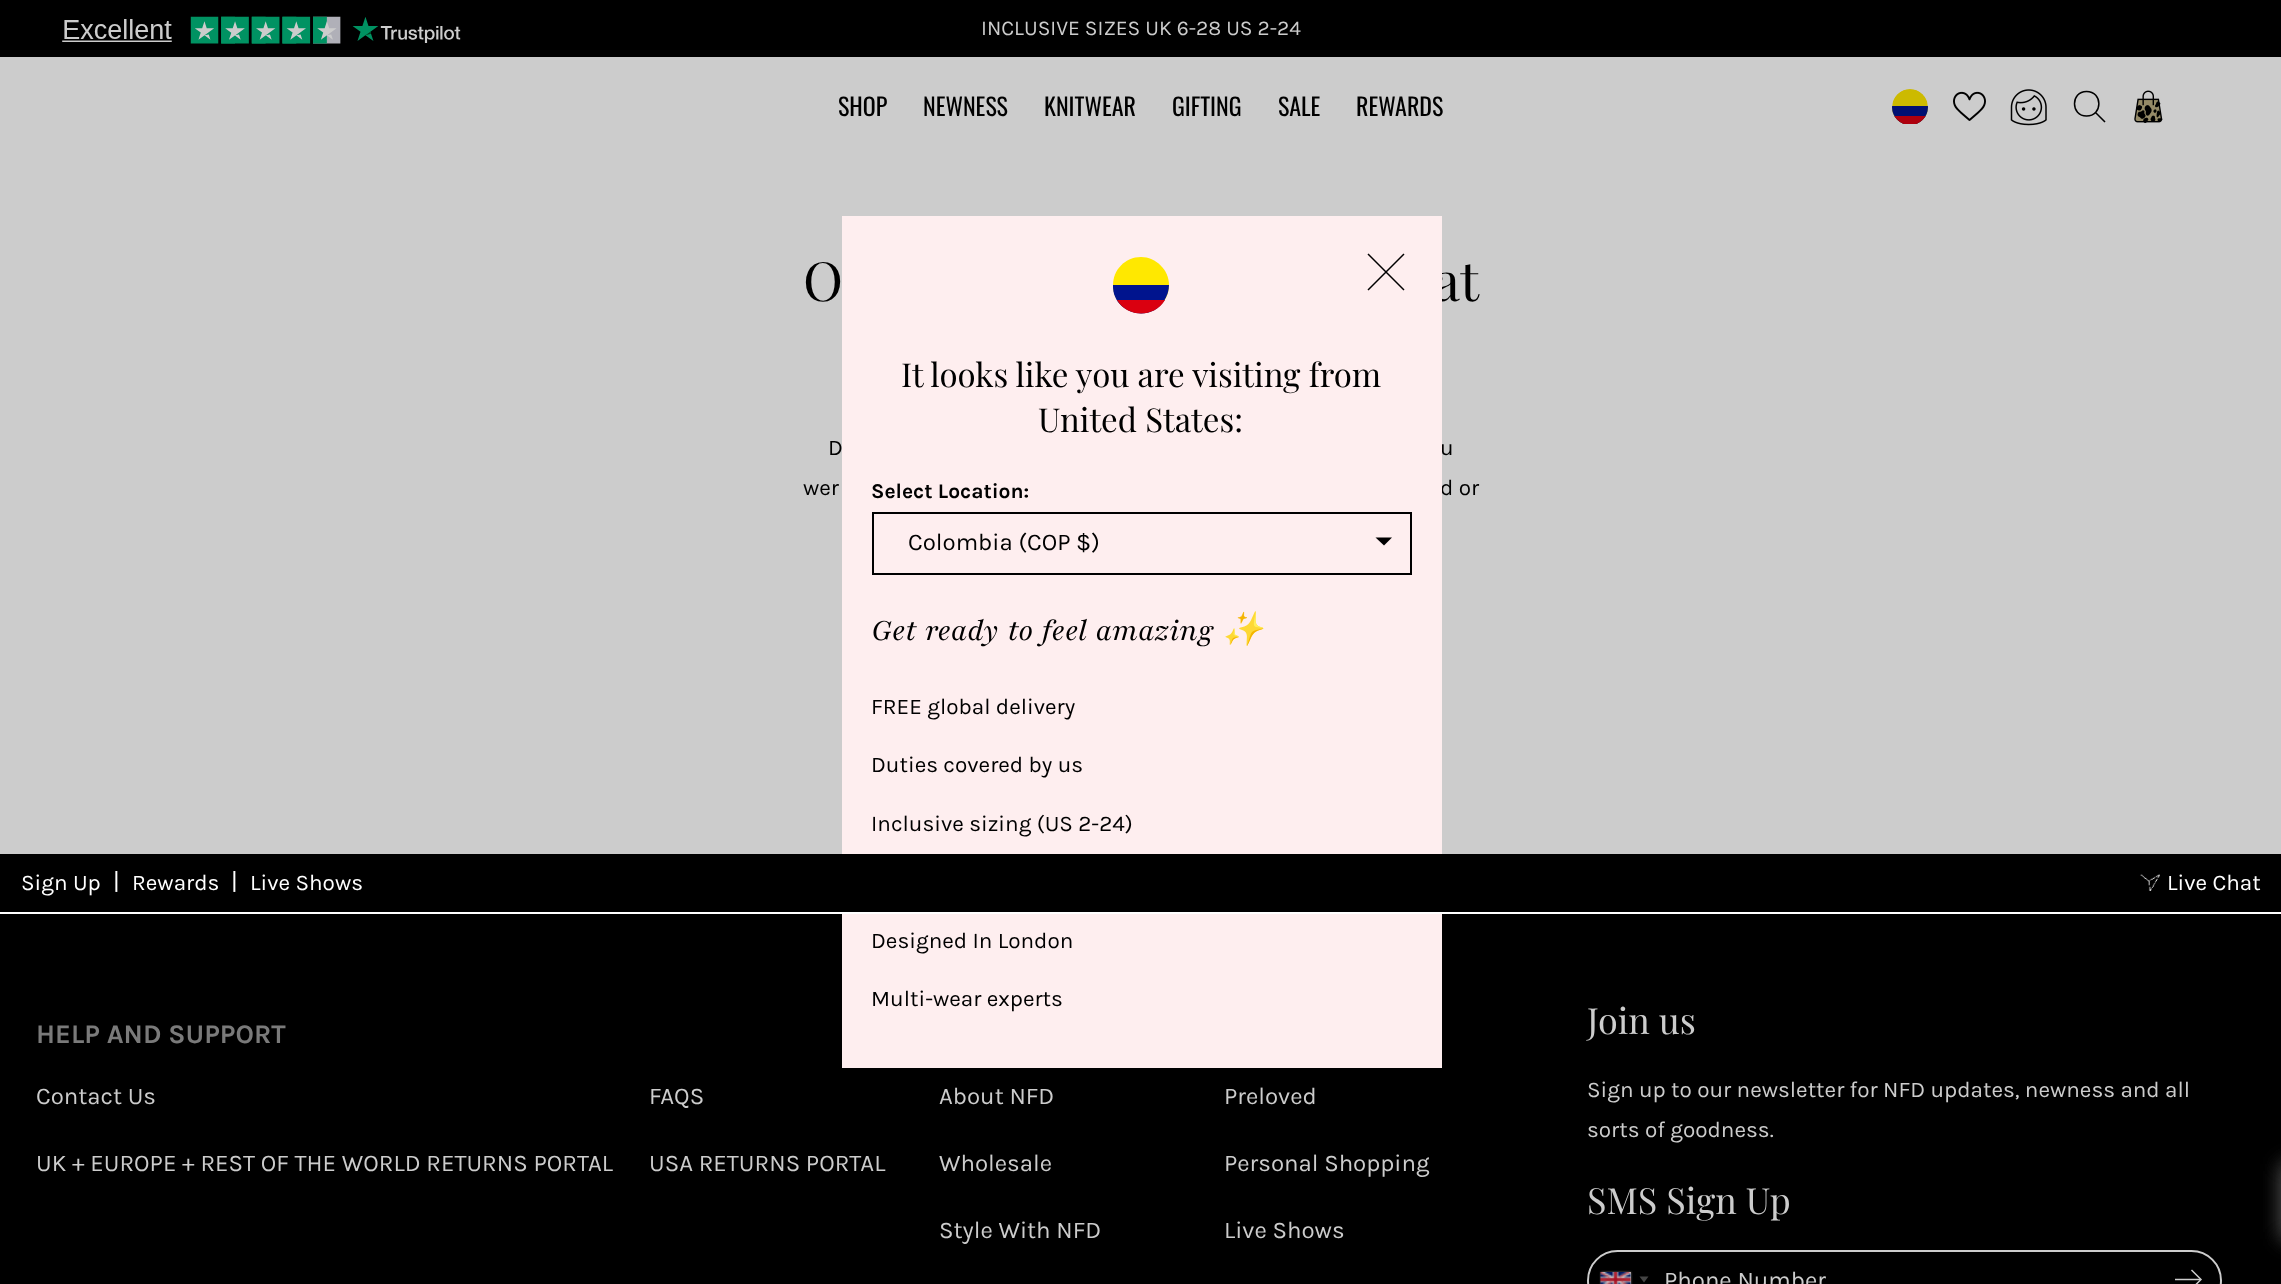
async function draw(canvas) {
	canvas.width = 2281;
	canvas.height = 1284;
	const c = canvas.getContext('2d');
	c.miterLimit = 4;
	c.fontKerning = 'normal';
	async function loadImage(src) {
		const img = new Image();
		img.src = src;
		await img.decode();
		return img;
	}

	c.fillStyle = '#ccc';
	c.fillRect(0, 0, 2281, 1284);
	c.fillStyle = '#000';
	c.fillRect(0, 0, 2281, 57);
	c.drawImage(await loadImage('img1.png'), 62, 16, 399, 28);
	c.font = '21px Karla';
	c.fillStyle = '#ccc';
	c.fillText('INCLUSIVE SIZES UK 6-28 US 2-24', 981, 35);
	c.font = '24px Oswald';
	c.fillStyle = '#000';
	for (const [text, x, y] of [
		['SHOP', 838, 116],
		['NEWNESS', 923, 116],
		['KNITWEAR', 1044, 116],
		['GIFTING', 1172, 116],
		['SALE', 1278, 116],
		['REWARDS', 1356, 116],
	]) {
		c.fillText(text, x, y);
	}
	c.save();
	c.beginPath();
	c.roundRect(1892, 89, 36, 36, 18);
	c.clip();
	c.fillStyle = '#ccba00';
	c.beginPath();
	c.roundRect(1892, 89, 36, 35, [18, 18, 0, 0]);
	c.fill();
	c.fillStyle = '#001072';
	c.fillRect(1892, 106, 36, 18);
	c.fillStyle = '#ae000d';
	c.fillRect(1892, 116, 36, 8);
	c.restore();
	c.drawImage(await loadImage('img2.png'), 1953, 91, 33, 30);
	c.drawImage(await loadImage('img3.png'), 2010, 89, 37, 37);
	c.beginPath();
	c.moveTo(2104.5, 121.5);
	c.lineTo(2095.5, 112.5);
	c.moveTo(2086.5, 116);
	c.bezierCurveTo(2103, 116, 2103, 91.5, 2086.5, 91.5);
	c.bezierCurveTo(2070.5, 91.5, 2070.5, 116, 2086.5, 116);
	c.closePath();
	c.strokeStyle = '#000';
	c.lineWidth = 1.5;
	c.lineCap = 'square';
	c.stroke();
	c.drawImage(await loadImage('img4.png'), 2134, 90, 29, 33);
	c.font = '54px Playfair Display';
	c.fillText('at', 1433, 301);
	c.font = '22.5px Karla';
	c.fillText('u', 1440, 455);
	c.fillText('d or', 1440, 495);
	c.fillRect(0, 914, 2281, 370);
	c.fillStyle = '#feeeef';
	c.fillRect(842, 216, 600, 852);
	c.beginPath();
	c.moveTo(1404, 254);
	c.lineTo(1368, 290);
	c.moveTo(1368, 254);
	c.lineTo(1404, 290);
	c.lineCap = 'butt';
	c.stroke();
	c.fillStyle = '#ffe800';
	c.beginPath();
	c.moveTo(1141, 257);
	c.bezierCurveTo(1125, 257, 1113, 270, 1113, 285);
	c.bezierCurveTo(1113, 301, 1125, 313, 1141, 313);
	c.bezierCurveTo(1156, 313, 1169, 301, 1169, 285);
	c.bezierCurveTo(1169, 270, 1156, 257, 1141, 257);
	c.closePath();
	c.fill();
	c.fillStyle = '#00148e';
	c.beginPath();
	c.moveTo(1169, 285);
	c.bezierCurveTo(1169, 291, 1167, 296, 1164, 301);
	c.bezierCurveTo(1149, 324, 1112, 313, 1113, 285);
	c.closePath();
	c.fill();
	c.fillStyle = '#da0010';
	c.beginPath();
	c.moveTo(1165, 300);
	c.bezierCurveTo(1154, 318, 1128, 318, 1117, 300);
	c.closePath();
	c.fill();
	c.font = '33px Playfair Display';
	c.fillStyle = '#000';
	c.fillText('It looks like you are visiting from', 901, 387);
	c.fillText('United States:', 1038, 432);
	c.font = 'bold 21px Karla';
	c.fillText('Select Location:', 871, 498);
	c.beginPath();
	c.moveTo(1375.5, 537.5);
	c.lineTo(1392, 537.5);
	c.lineTo(1384, 545.5);
	c.closePath();
	c.fill();
	c.lineWidth = 2;
	c.strokeRect(873, 513, 538, 61);
	c.font = '24px Karla';
	c.fillText('Colombia (COP $)', 908, 550);
	c.wordSpacing = '1.5px';
	c.font = 'italic 33px Playfair';
	c.fillText('Get ready to feel amazing', 871, 640);
	c.wordSpacing = '0px';
	c.font = 'italic 33px Noto Color Emoji';
	c.fillText('✨', 1222, 640);
	c.font = '22.5px Karla';
	for (const [text, x, y] of [
		['FREE global delivery', 871, 714],
		['Duties covered by us', 871, 772],
		['Inclusive sizing (US 2-24)', 871, 831],
		['Designed In London', 871, 948],
		['Multi-wear experts', 871, 1006],
	]) {
		c.fillText(text, x, y);
	}
	c.font = '54px Playfair Display';
	c.fillText('O', 803, 301);
	c.font = '22.5px Karla';
	c.fillText('D', 828, 455);
	c.fillText('wer', 803, 495);
	c.fillRect(0, 854, 2281, 58);
	c.fillStyle = '#fff';
	c.fillRect(0, 912, 2281, 2);
	c.fillText('Sign Up', 21, 890);
	c.font = '24px Karla';
	c.fillText('|', 113, 889);
	c.font = '22.5px Karla';
	c.fillText('Rewards', 132, 890);
	c.font = '24px Karla';
	c.fillText('|', 231, 889);
	c.font = '22.5px Karla';
	c.fillText('Live Shows', 250, 890);
	c.drawImage(await loadImage('img5.png'), 2140, 874, 20, 17);
	c.fillText('Live Chat', 2167, 890);
	c.font = 'bold 27px Karla';
	c.fillStyle = '#7a7a7a';
	c.fillText('HELP AND SUPPORT', 36, 1043);
	c.font = '24px Karla';
	c.fillStyle = '#ccc';
	for (const [text, x, y] of [
		['Contact Us', 36, 1104],
		['FAQS', 649, 1104],
		['UK + EUROPE + REST OF THE WORLD RETURNS PORTAL', 36, 1171],
		['USA RETURNS PORTAL', 649, 1171],
		['About NFD', 939, 1104],
		['Preloved', 1224, 1104],
		['Wholesale', 939, 1171],
		['Personal Shopping', 1224, 1171],
		['Style With NFD', 939, 1238],
		['Live Shows', 1224, 1238],
	]) {
		c.fillText(text, x, y);
	}
	c.font = '36px Playfair Display';
	c.fillText('Join us', 1587, 1034);
	c.font = '22.5px Karla';
	c.fillText('Sign up to our newsletter for NFD updates, newness and all', 1587, 1097);
	c.fillText('sorts of goodness.', 1587, 1137);
	c.font = '36px Playfair Display';
	c.fillText('SMS Sign Up', 1587, 1214);
	c.save();
	c.beginPath();
	c.rect(2175, 1266, 27, 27);
	c.clip();
	c.beginPath();
	c.moveTo(2199.5, 1279.5);
	c.lineTo(2174.5, 1279.5);
	c.strokeStyle = '#ccc';
	c.lineWidth = 1.5;
	c.lineCap = 'square';
	c.stroke();
	c.restore();
	c.beginPath();
	c.moveTo(2192, 1270.5);
	c.lineTo(2201, 1279.5);
	c.lineTo(2192, 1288.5);
	c.strokeStyle = '#ccc';
	c.lineWidth = 1.5;
	c.lineCap = 'square';
	c.stroke();
	c.beginPath();
	c.roundRect(1588, 1251, 633, 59, 29.5);
	c.lineWidth = 2;
	c.stroke();
	c.fillStyle = '#6d6d6d';
	c.filter = 'blur(1px)';
	c.beginPath();
	c.rect(1601, 1272, 30, 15);
	c.fill();
	c.filter = 'none';
	c.fillStyle = '#afafaf';
	c.fillRect(1630, 1272, 1, 12);
	c.drawImage(await loadImage('img6.png'), 1600, 1272, 31, 12);
	c.fillStyle = '#444';
	c.beginPath();
	c.moveTo(1639.5, 1276.5);
	c.lineTo(1648.5, 1276.5);
	c.lineTo(1644, 1282.5);
	c.closePath();
	c.fill();
	c.font = '24px Karla';
	c.fillStyle = '#ccc';
	c.fillText('Phone Number', 1664, 1288);
	c.fillStyle = '#75757580';
	c.filter = 'blur(10.5px)';
	c.beginPath();
	c.rect(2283, 1164, 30, 75);
	c.fill();
	c.filter = 'none';
	c.filter = 'blur(10.5px)';
	c.beginPath();
	c.rect(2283, 1164, 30, 75);
	c.fill();
	c.filter = 'none';
}

draw(document.querySelector('canvas'));
